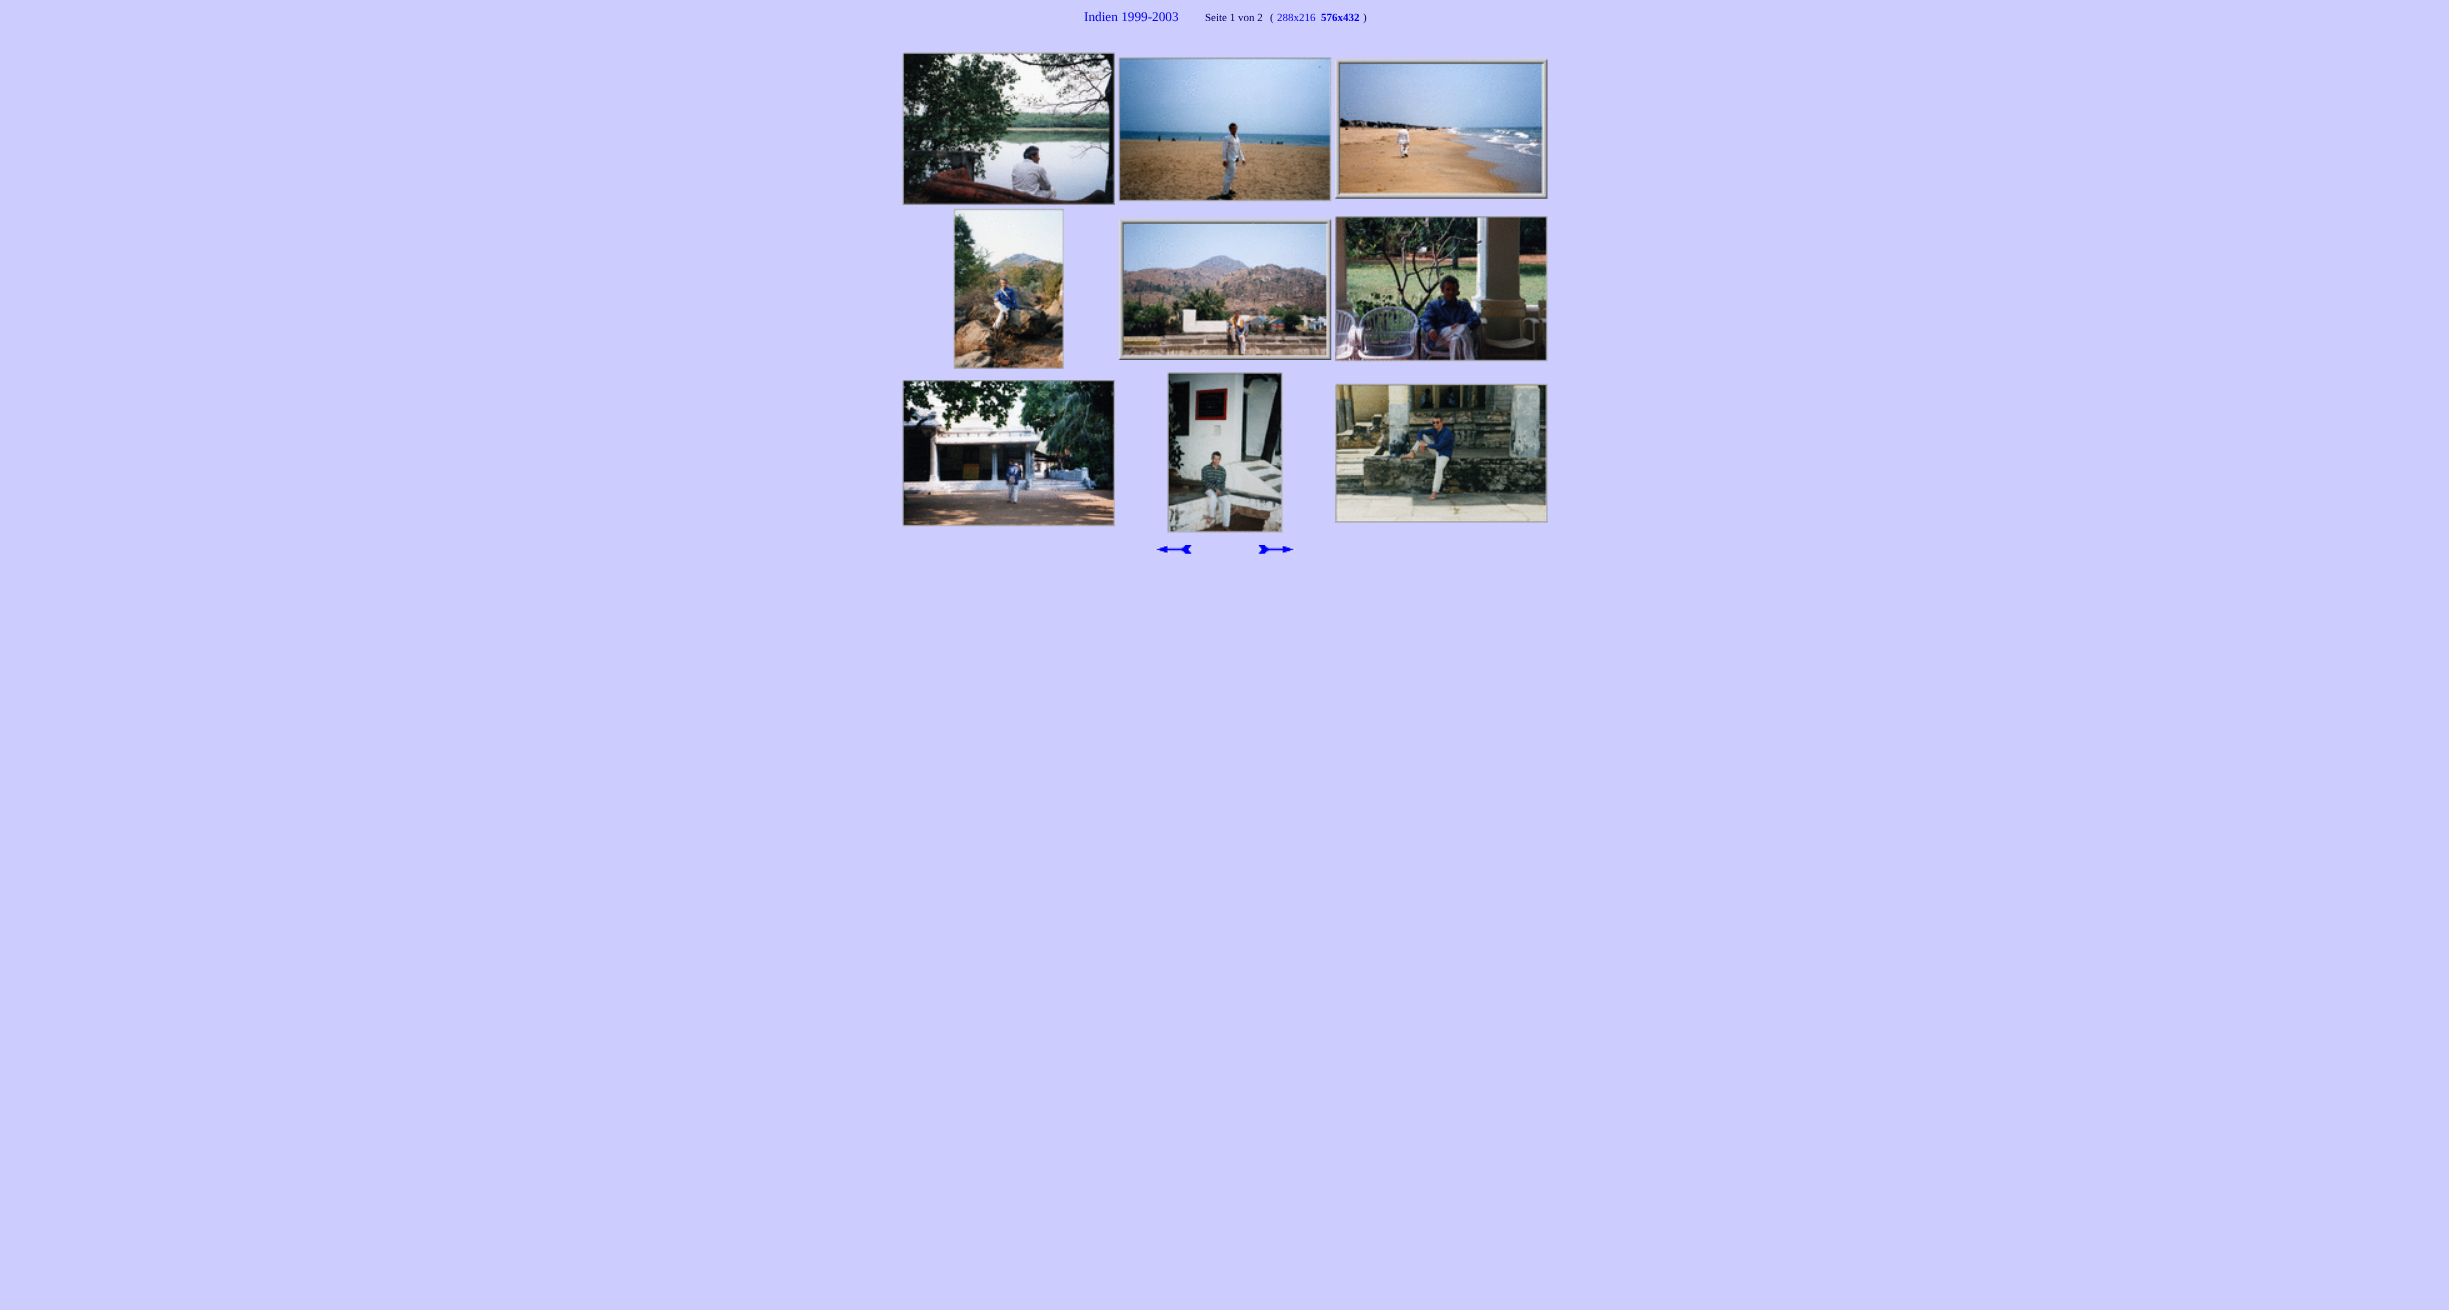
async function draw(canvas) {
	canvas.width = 2449;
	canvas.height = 1310;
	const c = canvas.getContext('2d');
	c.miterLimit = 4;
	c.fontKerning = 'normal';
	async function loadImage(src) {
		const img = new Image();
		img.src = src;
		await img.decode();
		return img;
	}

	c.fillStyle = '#ccf';
	c.fillRect(0, 0, 2449, 1310);
	c.font = '13.25px Liberation Serif';
	c.fillStyle = '#00e';
	c.fillText('Indien 1999-2003', 1084, 21);
	c.font = '11px Liberation Serif';
	c.fillStyle = '#006';
	c.fillText('Seite 1 von 2', 1205, 21);
	c.fillText('(', 1270, 21);
	c.fillStyle = '#00e';
	c.fillText('288x216', 1277, 21);
	c.font = 'bold 11px Liberation Serif';
	c.fillText('576x432', 1321, 21);
	c.font = '11px Liberation Serif';
	c.fillStyle = '#006';
	c.fillText(')', 1363, 21);
	c.drawImage(await loadImage('img1.png'), 902, 52, 213, 153);
	c.drawImage(await loadImage('img2.png'), 1118, 57, 214, 145);
	c.drawImage(await loadImage('img3.png'), 1335, 58, 213, 141);
	c.drawImage(await loadImage('img4.png'), 953, 208, 111, 161);
	c.drawImage(await loadImage('img5.png'), 1118, 218, 214, 142);
	c.drawImage(await loadImage('img6.png'), 1335, 216, 213, 146);
	c.drawImage(await loadImage('img7.png'), 902, 380, 213, 147);
	c.drawImage(await loadImage('img8.png'), 1167, 372, 116, 161);
	c.drawImage(await loadImage('img9.png'), 1335, 383, 213, 140);
	c.drawImage(await loadImage('img10.png'), 1155, 545, 38, 9);
	c.drawImage(await loadImage('img11.png'), 1257, 545, 38, 9);
}

draw(document.querySelector('canvas'));
